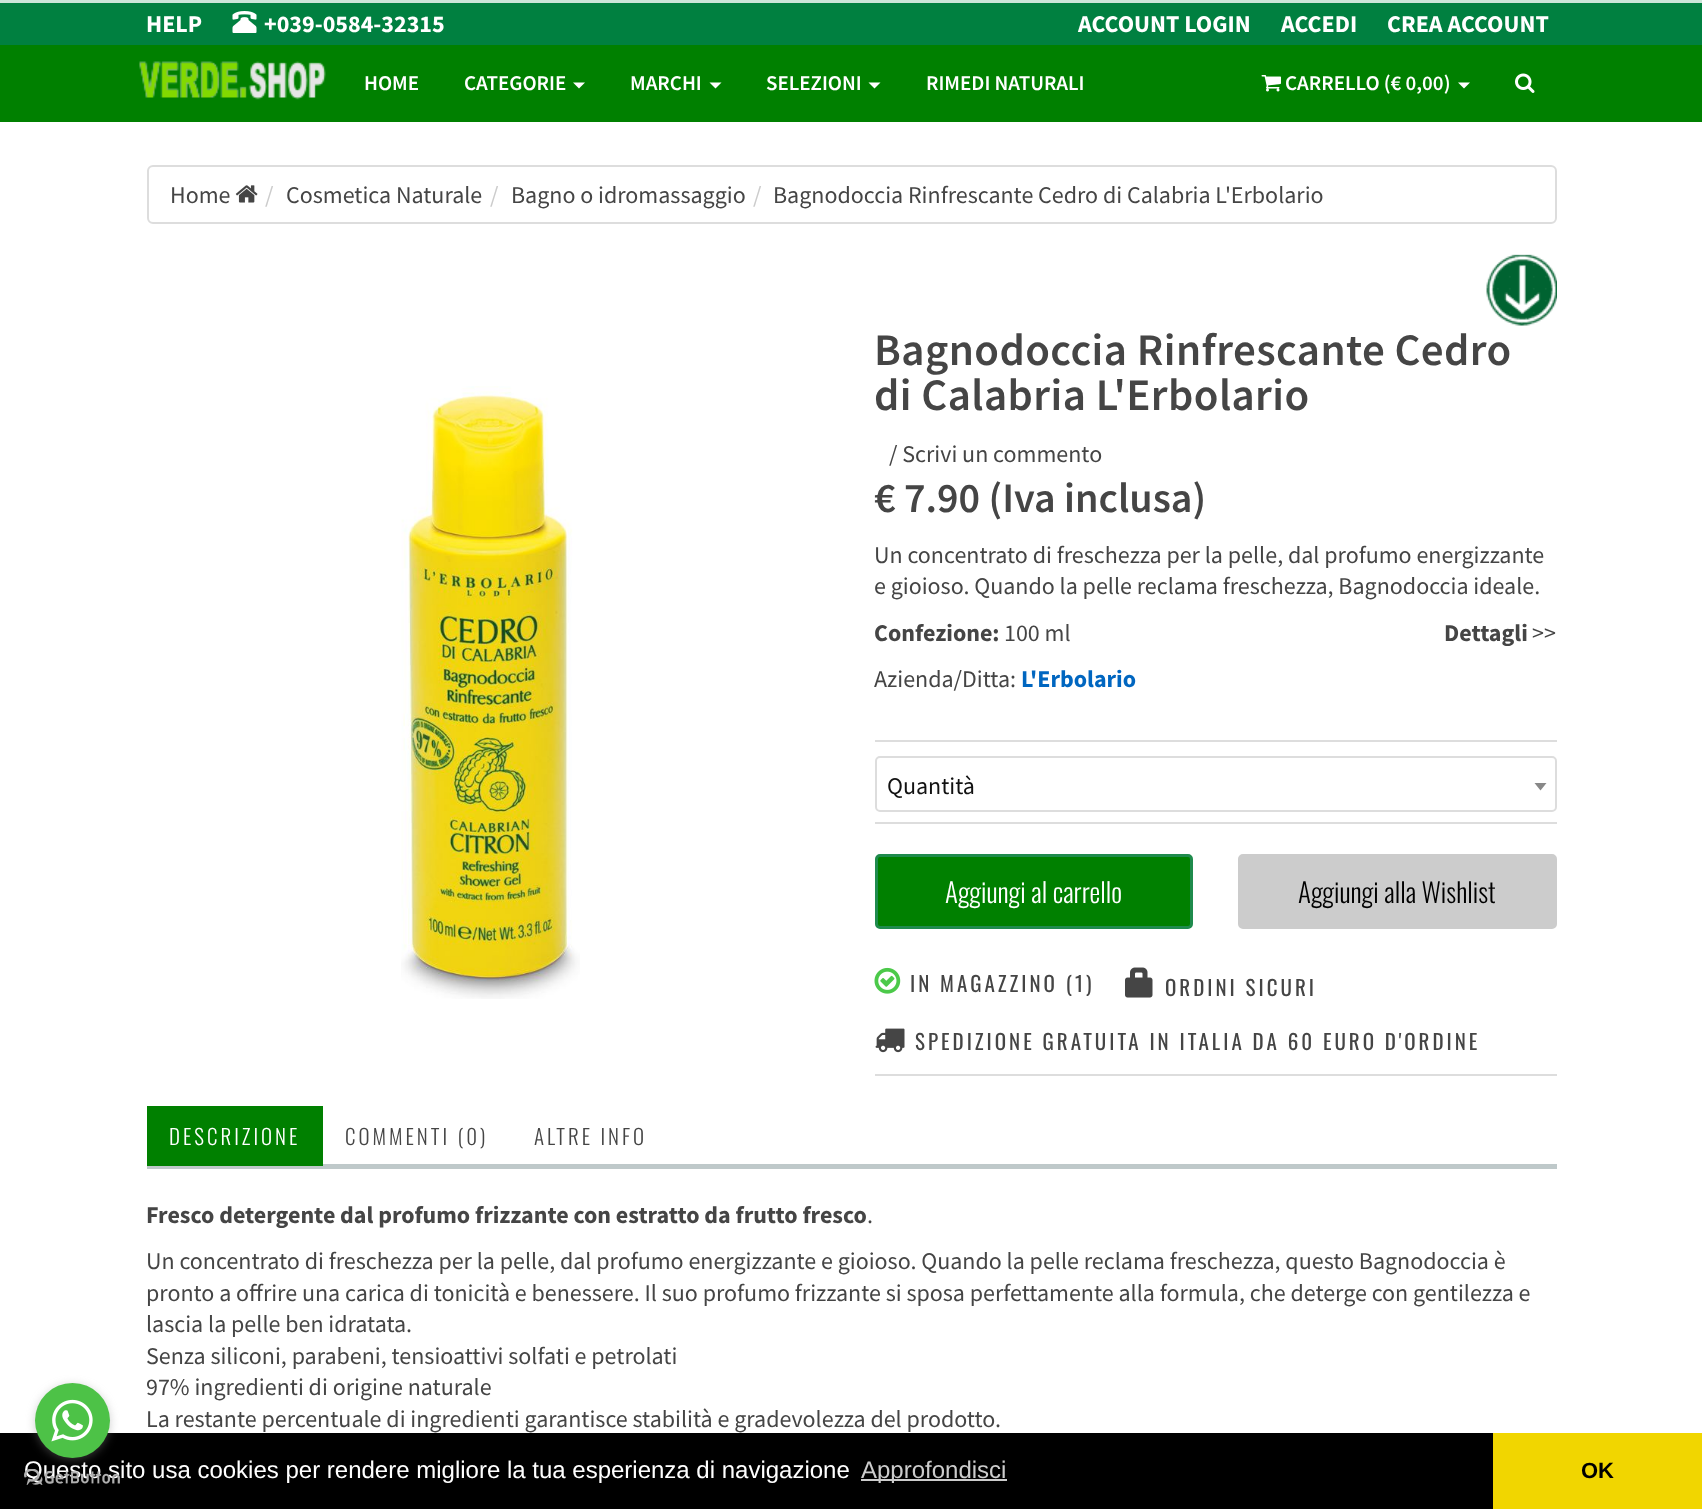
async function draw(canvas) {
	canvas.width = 1702;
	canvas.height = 1509;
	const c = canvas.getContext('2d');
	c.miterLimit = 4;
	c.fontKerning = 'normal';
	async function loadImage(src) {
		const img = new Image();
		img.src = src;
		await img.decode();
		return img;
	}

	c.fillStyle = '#fff';
	c.fillRect(0, 0, 1702, 1509);
	for (const [x, y, w, h, color] of [
		[0, 0, 1702, 3, '#cce6d9'],
		[0, 45, 1702, 77, '#008000'],
		[0, 3, 1702, 42, '#008040'],
	]) {
		c.fillStyle = color;
		c.fillRect(x, y, w, h);
	}
	c.font = 'bold 24px Source Sans Pro';
	c.fillStyle = '#fff';
	c.fillText('HELP', 146, 32);
	c.drawImage(await loadImage('img1.png'), 232, 11, 25, 22);
	for (const [text, x, y] of [
		['+039-0584-32315', 264, 32],
		['ACCOUNT LOGIN', 1078, 32],
		['ACCEDI', 1281, 32],
		['CREA ACCOUNT', 1387, 32],
	]) {
		c.fillText(text, x, y);
	}
	c.drawImage(await loadImage('img2.png'), 139, 61, 187, 39);
	c.font = '600 21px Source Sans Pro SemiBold';
	c.fillText('HOME', 364, 90);
	c.fillText('CATEGORIE', 464, 90);
	c.beginPath();
	c.moveTo(573, 82.5);
	c.lineTo(585, 82.5);
	c.lineTo(579, 88.5);
	c.closePath();
	c.fill();
	c.fillText('MARCHI', 630, 90);
	c.beginPath();
	c.moveTo(709.5, 82.5);
	c.lineTo(721.5, 82.5);
	c.lineTo(715.5, 88.5);
	c.closePath();
	c.fill();
	c.fillText('SELEZIONI', 766, 90);
	c.beginPath();
	c.moveTo(868.5, 82.5);
	c.lineTo(880.5, 82.5);
	c.lineTo(874.5, 88.5);
	c.closePath();
	c.fill();
	c.fillText('RIMEDI NATURALI', 926, 90);
	c.drawImage(await loadImage('img3.png'), 1261, 75, 20, 17);
	c.fillText('CARRELLO (€ 0,00)', 1285, 90);
	c.beginPath();
	c.moveTo(1458, 82.5);
	c.lineTo(1470, 82.5);
	c.lineTo(1464, 88.5);
	c.closePath();
	c.fill();
	c.drawImage(await loadImage('img4.png'), 1515, 73, 20, 20);
	c.fillStyle = '#000';
	c.fillRect(0, 1433, 1493, 76);
	c.font = '24px Liberation Sans';
	c.fillStyle = '#fff';
	c.fillText('Questo sito usa cookies per rendere migliore la tua esperienza di navigazione', 24, 1478);
	c.drawImage(await loadImage('img6.png'), 24, 1469, 96, 16);
	c.fillStyle = '#88888866';
	c.filter = 'blur(5px)';
	c.beginPath();
	c.roundRect(35, 1385, 75, 75, 37.5);
	c.fill();
	c.filter = 'none';
	c.fillStyle = '#4dc247';
	c.beginPath();
	c.arc(72.5, 1420.5, 37.5, 0, 2 * Math.PI);
	c.fill();
	c.drawImage(await loadImage('img5.png'), 51, 1399, 42, 43);
	c.beginPath();
	c.roundRect(148, 166, 1408, 57, 5);
	c.strokeStyle = '#ddd';
	c.lineWidth = 2;
	c.stroke();
	c.font = '24px Source Sans Pro';
	c.fillStyle = '#454545';
	c.fillText('Home', 170, 203);
	c.drawImage(await loadImage('img7.png'), 235, 185, 23, 18);
	c.fillStyle = '#ccc';
	c.fillText('/', 265, 203);
	c.fillStyle = '#454545';
	c.fillText('Cosmetica Naturale', 286, 203);
	c.fillStyle = '#ccc';
	c.fillText('/', 490, 203);
	c.fillStyle = '#454545';
	c.fillText('Bagno o idromassaggio', 511, 203);
	c.fillStyle = '#ccc';
	c.fillText('/', 753, 203);
	c.fillStyle = '#454545';
	c.fillText('Bagnodoccia Rinfrescante Cedro di Calabria L\'Erbolario', 773, 203);
	c.drawImage(await loadImage('img8.png'), 1486, 254, 71, 72);
	c.drawImage(await loadImage('img9.png'), 401, 386, 179, 613);
	c.letterSpacing = '0.4px';
	c.font = '600 45px Source Sans Pro SemiBold';
	c.fillText('Bagnodoccia Rinfrescante Cedro', 874, 365);
	c.fillText('di Calabria L\'Erbolario', 874, 410);
	c.letterSpacing = '0px';
	c.font = '24px Source Sans Pro';
	c.fillText('/ Scrivi un commento', 889, 462);
	c.font = '600 42px Source Sans Pro SemiBold';
	c.fillText('€ 7.90 (Iva inclusa)', 874, 512);
	c.font = '24px Source Sans Pro';
	c.fillText('Un concentrato di freschezza per la pelle, dal profumo energizzante', 874, 563);
	c.fillText('e gioioso. Quando la pelle reclama freschezza, Bagnodoccia ideale.', 874, 594);
	c.font = 'bold 24px Source Sans Pro';
	c.fillText('Confezione:', 874, 641);
	c.font = '24px Source Sans Pro';
	c.fillText('100 ml', 1004, 641);
	c.font = 'bold 24px Source Sans Pro';
	c.fillText('Dettagli', 1444, 641);
	c.font = '24px Source Sans Pro';
	c.fillText('>>', 1532, 641);
	c.fillText('Azienda/Ditta:', 874, 687);
	c.font = 'bold 24px Source Sans Pro';
	c.fillStyle = '#0066c0';
	c.fillText('L\'Erbolario', 1021, 687);
	for (const [x, y, w, h, color] of [
		[875, 1074, 682, 2, '#ddd'],
		[875, 740, 682, 2, '#ddd'],
		[875, 822, 682, 2, '#ddd'],
	]) {
		c.fillStyle = color;
		c.fillRect(x, y, w, h);
	}
	c.beginPath();
	c.roundRect(876, 757, 680, 54, 4);
	c.stroke();
	c.font = '24px Source Sans Pro';
	c.fillStyle = '#121212';
	c.fillText('Quantità', 887, 794);
	c.fillStyle = '#888';
	c.beginPath();
	c.moveTo(1534.5, 783);
	c.lineTo(1546.5, 783);
	c.lineTo(1540.5, 790.5);
	c.closePath();
	c.fill();
	c.fillStyle = '#008000';
	c.beginPath();
	c.roundRect(876.5, 855.5, 315, 72, 3.5);
	c.fill();
	c.strokeStyle = '#1f8b4d';
	c.lineWidth = 3;
	c.stroke();
	c.font = '300 27px Oswald';
	c.fillStyle = '#fff';
	c.fillText('Aggiungi al carrello', 945, 903);
	c.fillStyle = '#ccc';
	c.beginPath();
	c.roundRect(1239.5, 855.5, 316, 72, 3.5);
	c.fill();
	c.strokeStyle = '#ccc';
	c.stroke();
	c.fillStyle = '#000';
	c.fillText('Aggiungi alla Wishlist', 1298, 903);
	c.drawImage(await loadImage('img10.png'), 874, 967, 27, 27);
	c.letterSpacing = '3px';
	c.font = '21px Oswald';
	c.fillStyle = '#454545';
	c.fillText('IN MAGAZZINO (1)', 910, 992);
	c.drawImage(await loadImage('img11.png'), 1125, 967, 28, 31);
	c.fillText('ORDINI SICURI', 1165, 996);
	c.drawImage(await loadImage('img12.png'), 875, 1028, 30, 25);
	c.fillText('SPEDIZIONE GRATUITA IN ITALIA DA 60 EURO D\'ORDINE', 915, 1050);
	c.fillStyle = '#bfc9ca';
	c.fillRect(147, 1164, 1410, 5);
	c.fillStyle = '#008000';
	c.fillRect(147, 1106, 176, 60);
	c.font = '300 21px Oswald';
	c.fillStyle = '#fff';
	c.fillText('DESCRIZIONE', 169, 1145);
	c.fillStyle = '#454545';
	c.fillText('COMMENTI (0)', 345, 1145);
	c.fillText('ALTRE INFO', 534, 1145);
	c.letterSpacing = '0px';
	c.font = 'bold 24px Source Sans Pro';
	c.fillText('Fresco detergente dal profumo frizzante con estratto da frutto fresco', 146, 1223);
	c.font = '24px Source Sans Pro';
	for (const [text, x, y] of [
		['.', 867, 1223],
		['Un concentrato di freschezza per la pelle, dal profumo energizzante e gioioso. Quando la pelle reclama freschezza, questo Bagnodoccia è', 146, 1269],
		['pronto a offrire una carica di tonicità e benessere. Il suo profumo frizzante si sposa perfettamente alla formula, che deterge con gentilezza e', 146, 1301],
		['lascia la pelle ben idratata.', 146, 1332],
		['Senza siliconi, parabeni, tensioattivi solfati e petrolati', 146, 1364],
		['97% ingredienti di origine naturale', 146, 1395],
		['La restante percentuale di ingredienti garantisce stabilità e gradevolezza del prodotto.', 146, 1427],
	]) {
		c.fillText(text, x, y);
	}
	c.fillStyle = '#ccc';
	c.fillRect(861, 1479, 146, 2);
	c.font = '24px Liberation Sans';
	c.fillText('Approfondisci', 861, 1478);
	c.fillStyle = '#f1d600';
	c.fillRect(1493, 1433, 209, 76);
	c.font = 'bold 22px Liberation Sans';
	c.fillStyle = '#000';
	c.fillText('OK', 1581, 1478);
}

draw(document.querySelector('canvas'));
